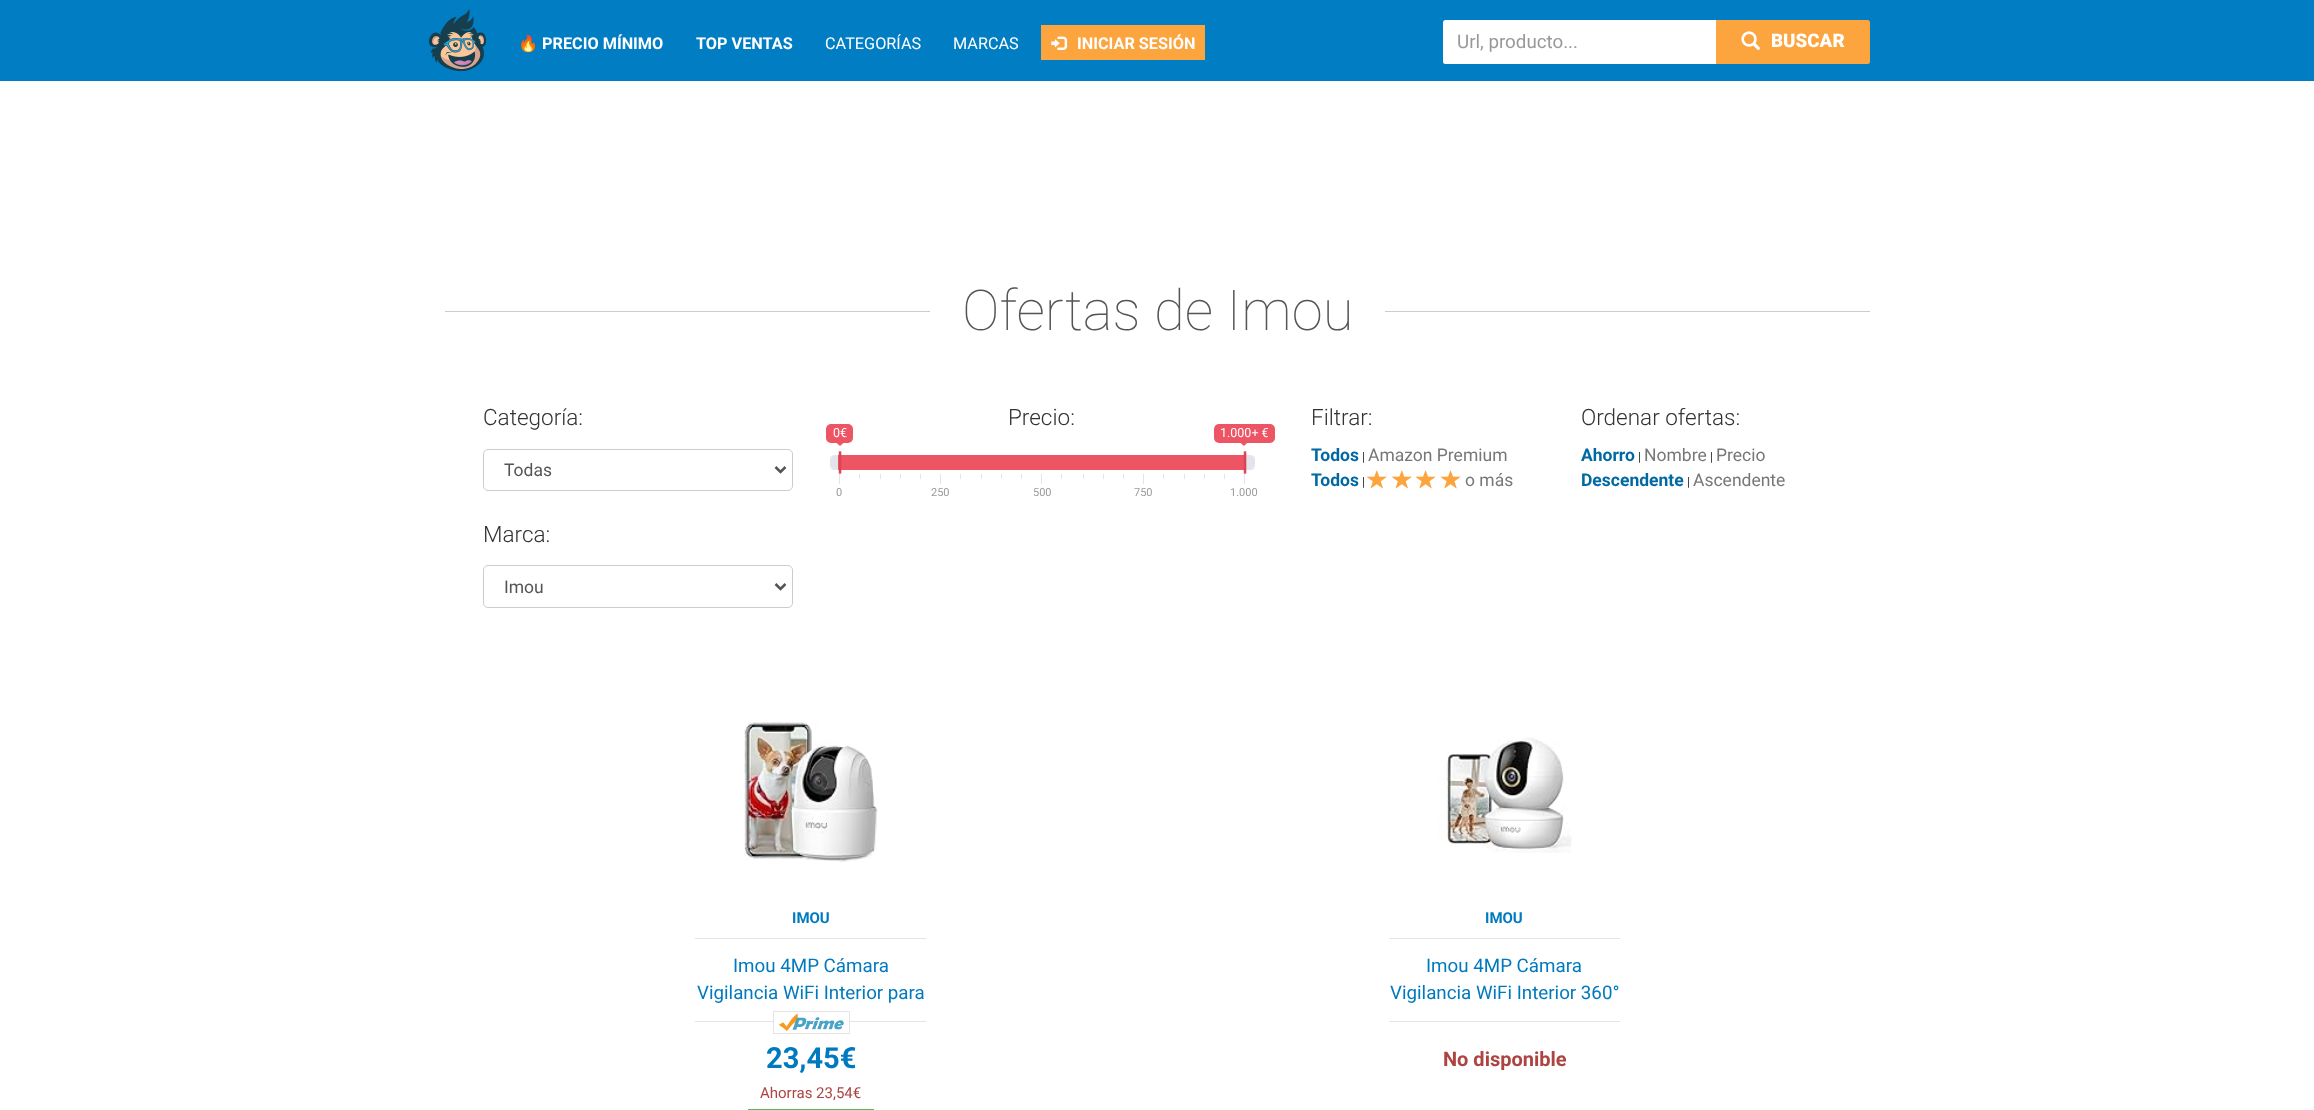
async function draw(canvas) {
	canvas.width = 2314;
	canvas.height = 1110;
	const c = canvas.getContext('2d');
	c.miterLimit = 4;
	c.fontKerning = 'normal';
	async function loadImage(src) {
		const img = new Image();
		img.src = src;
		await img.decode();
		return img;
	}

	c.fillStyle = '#fff';
	c.fillRect(0, 0, 2314, 1110);
	c.fillStyle = '#007dc3';
	c.fillRect(0, 0, 2314, 81);
	c.drawImage(await loadImage('img1.png'), 428, 9, 59, 62);
	c.font = 'bold 16.25px Noto Color Emoji';
	c.fillStyle = '#fff';
	c.fillText('🔥', 518, 49);
	c.font = 'bold 16.25px Roboto';
	c.fillText('PRECIO MÍNIMO', 542, 49);
	c.fillText('TOP VENTAS', 696, 49);
	c.font = '16.25px Roboto';
	c.fillText('CATEGORÍAS', 825, 49);
	c.fillText('MARCAS', 953, 49);
	c.fillStyle = '#fca43e';
	c.fillRect(1041, 25, 164, 35);
	c.drawImage(await loadImage('img2.png'), 1051, 36, 17, 14);
	c.font = 'bold 16.25px Roboto';
	c.fillStyle = '#fff';
	c.fillText('INICIAR SESIÓN', 1077, 49);
	c.beginPath();
	c.roundRect(1443, 20, 275, 44, [2.5, 0, 0, 2.5]);
	c.fill();
	c.font = '18.75px Roboto';
	c.fillStyle = '#999';
	c.fillText('Url, producto...', 1457, 48);
	c.fillStyle = '#fca43e';
	c.beginPath();
	c.roundRect(1716, 20, 154, 44, [0, 2.5, 2.5, 0]);
	c.fill();
	c.drawImage(await loadImage('img3.png'), 1741, 31, 20, 20);
	c.font = '900 18.75px Roboto';
	c.fillStyle = '#fff';
	c.fillText('BUSCAR', 1771, 47);
	c.fillStyle = '#ccc';
	c.fillRect(445, 311, 1425, 1);
	c.fillStyle = '#fff';
	c.fillRect(930, 311, 455, 1);
	c.font = '100 56.25px Roboto';
	c.fillStyle = '#555';
	c.fillText('Ofertas de Imou', 962, 330);
	c.font = '300 22.5px Roboto';
	c.fillStyle = '#333';
	c.fillText('Categoría:', 483, 425);
	c.beginPath();
	c.roundRect(483.5, 449.5, 309, 41, 4.5);
	c.strokeStyle = '#ccc';
	c.stroke();
	c.beginPath();
	c.moveTo(775.5, 467);
	c.lineTo(780.5, 472);
	c.lineTo(785.5, 467);
	c.strokeStyle = '#555';
	c.lineWidth = 2.5;
	c.stroke();
	c.font = '17.5px Roboto';
	c.fillStyle = '#555';
	c.fillText('Todas', 504, 476);
	c.font = '300 22.5px Roboto';
	c.fillStyle = '#333';
	c.fillText('Marca:', 483, 542);
	c.beginPath();
	c.roundRect(483.5, 565.5, 309, 42, 4.5);
	c.strokeStyle = '#ccc';
	c.lineWidth = 1;
	c.stroke();
	c.beginPath();
	c.moveTo(775.5, 584);
	c.lineTo(780.5, 589);
	c.lineTo(785.5, 584);
	c.strokeStyle = '#555';
	c.lineWidth = 2.5;
	c.stroke();
	c.font = '17.5px Roboto';
	c.fillStyle = '#555';
	c.fillText('Imou', 504, 593);
	c.font = '300 22.5px Roboto';
	c.fillStyle = '#333';
	c.fillText('Precio:', 1008, 425);
	c.fillStyle = '#ed5565';
	c.beginPath();
	c.roundRect(826, 424, 27, 19, 5);
	c.fill();
	c.font = '12.5px Roboto';
	c.fillStyle = '#fff';
	c.fillText('0€', 833, 437);
	c.fillStyle = '#ed5565';
	c.beginPath();
	c.moveTo(836, 442.5);
	c.lineTo(844, 442.5);
	c.lineTo(840, 446);
	c.closePath();
	c.fill();
	c.beginPath();
	c.roundRect(1214, 424, 61, 19, 5);
	c.fill();
	c.fillStyle = '#fff';
	c.fillText('1.000+ €', 1220, 437);
	c.fillStyle = '#ed5565';
	c.beginPath();
	c.moveTo(1240, 442.5);
	c.lineTo(1247.5, 442.5);
	c.lineTo(1244, 446);
	c.closePath();
	c.fill();
	c.drawImage(await loadImage('img4.png'), 830, 455, 8, 15);
	c.drawImage(await loadImage('img5.png'), 1246, 455, 9, 15);
	c.fillRect(838, 455, 406, 15);
	c.drawImage(await loadImage('img6.png'), 838, 451, 4, 23);
	c.drawImage(await loadImage('img7.png'), 1243, 451, 4, 23);
	for (const [x, y, w, h, color] of [
		[839, 474, 1, 10, '#e1e4e9'],
		[859, 474, 1, 5, '#e1e4e9'],
		[880, 474, 1, 5, '#e1e4e9'],
		[900, 474, 1, 5, '#e1e4e9'],
		[920, 474, 1, 5, '#e1e4e9'],
		[940, 474, 1, 10, '#e1e4e9'],
		[960, 474, 1, 5, '#e1e4e9'],
		[981, 474, 1, 5, '#e1e4e9'],
		[1001, 474, 1, 5, '#e1e4e9'],
		[1021, 474, 1, 5, '#e1e4e9'],
		[1041, 474, 1, 10, '#e1e4e9'],
		[1061, 474, 1, 5, '#e1e4e9'],
		[1083, 474, 1, 5, '#e1e4e9'],
		[1103, 474, 1, 5, '#e1e4e9'],
		[1123, 474, 1, 5, '#e1e4e9'],
		[1143, 474, 1, 10, '#e1e4e9'],
		[1163, 474, 1, 5, '#e1e4e9'],
		[1184, 474, 1, 5, '#e1e4e9'],
		[1204, 474, 1, 5, '#e1e4e9'],
		[1224, 474, 1, 5, '#e1e4e9'],
		[1244, 474, 1, 10, '#e1e4e9'],
	]) {
		c.fillStyle = color;
		c.fillRect(x, y, w, h);
	}
	c.font = '11px Roboto';
	c.fillStyle = '#999';
	for (const [text, x, y] of [
		['0', 836, 496],
		['250', 931, 496],
		['500', 1033, 496],
		['750', 1134, 496],
		['1.000', 1230, 496],
	]) {
		c.fillText(text, x, y);
	}
	c.font = '300 22.5px Roboto';
	c.fillStyle = '#333';
	c.fillText('Filtrar:', 1311, 425);
	c.font = 'bold 17.5px Roboto';
	c.fillStyle = '#0069a4';
	c.fillText('Todos', 1311, 461);
	c.font = '12.5px Roboto';
	c.fillStyle = '#333';
	c.fillText('|', 1362, 461);
	c.font = '17.5px Roboto';
	c.fillStyle = '#777';
	c.fillText('Amazon Premium', 1368, 461);
	c.font = 'bold 17.5px Roboto';
	c.fillStyle = '#0069a4';
	c.fillText('Todos', 1311, 486);
	c.font = '12.5px Roboto';
	c.fillStyle = '#333';
	c.fillText('|', 1362, 486);
	c.drawImage(await loadImage('img8.png'), 1366, 470, 21, 19);
	c.drawImage(await loadImage('img8.png'), 1391, 470, 21, 19);
	c.drawImage(await loadImage('img9.png'), 1415, 470, 21, 19);
	c.drawImage(await loadImage('img9.png'), 1440, 470, 21, 19);
	c.font = '17.5px Roboto';
	c.fillStyle = '#777';
	c.fillText('o más', 1465, 486);
	c.font = '300 22.5px Roboto';
	c.fillStyle = '#333';
	c.fillText('Ordenar ofertas:', 1581, 425);
	c.font = 'bold 17.5px Roboto';
	c.fillStyle = '#0069a4';
	c.fillText('Ahorro', 1581, 461);
	c.font = '12.5px Roboto';
	c.fillStyle = '#333';
	c.fillText('|', 1638, 461);
	c.font = '17.5px Roboto';
	c.fillStyle = '#777';
	c.fillText('Nombre', 1644, 461);
	c.font = '12.5px Roboto';
	c.fillStyle = '#333';
	c.fillText('|', 1710, 461);
	c.font = '17.5px Roboto';
	c.fillStyle = '#777';
	c.fillText('Precio', 1716, 461);
	c.font = 'bold 17.5px Roboto';
	c.fillStyle = '#0069a4';
	c.fillText('Descendente', 1581, 486);
	c.font = '12.5px Roboto';
	c.fillStyle = '#333';
	c.fillText('|', 1687, 486);
	c.font = '17.5px Roboto';
	c.fillStyle = '#777';
	c.fillText('Ascendente', 1693, 486);
	c.drawImage(await loadImage('img10.png'), 744, 722, 134, 140);
	c.font = 'bold 15px Roboto';
	c.fillStyle = '#007abe';
	c.fillText('IMOU', 792, 923);
	c.fillStyle = '#e4e4e4';
	c.fillRect(695, 938, 231, 1);
	c.font = '18.75px Roboto';
	c.fillStyle = '#007abe';
	c.fillText('Imou 4MP Cámara', 733, 972);
	c.fillText('Vigilancia WiFi Interior para', 697, 999);
	c.fillStyle = '#e4e4e4';
	c.fillRect(695, 1021, 231, 1);
	c.fillStyle = '#fff';
	c.fillRect(774, 1021, 75, 1);
	c.drawImage(await loadImage('img11.png'), 778, 1013, 66, 19);
	c.strokeStyle = '#e4e4e4';
	c.lineWidth = 1;
	c.strokeRect(773.5, 1011.5, 76, 22);
	c.font = 'bold 29px Roboto';
	c.fillStyle = '#007abe';
	c.fillText('23,45€', 766, 1068);
	c.font = '15px Roboto';
	c.fillStyle = '#ad4442';
	c.fillText('Ahorras 23,54€', 760, 1098);
	c.fillStyle = '#5cb85c';
	c.fillRect(748, 1109, 126, 1);
	c.drawImage(await loadImage('img12.png'), 1438, 737, 134, 116);
	c.font = 'bold 15px Roboto';
	c.fillStyle = '#007abe';
	c.fillText('IMOU', 1485, 923);
	c.fillStyle = '#e4e4e4';
	c.fillRect(1389, 938, 231, 1);
	c.font = '18.75px Roboto';
	c.fillStyle = '#007abe';
	c.fillText('Imou 4MP Cámara', 1426, 972);
	c.fillText('Vigilancia WiFi Interior 360°', 1390, 999);
	c.fillStyle = '#e4e4e4';
	c.fillRect(1389, 1021, 231, 1);
	c.font = 'bold 20px Roboto';
	c.fillStyle = '#ad4442';
	c.fillText('No disponible', 1443, 1066);
}

draw(document.querySelector('canvas'));
